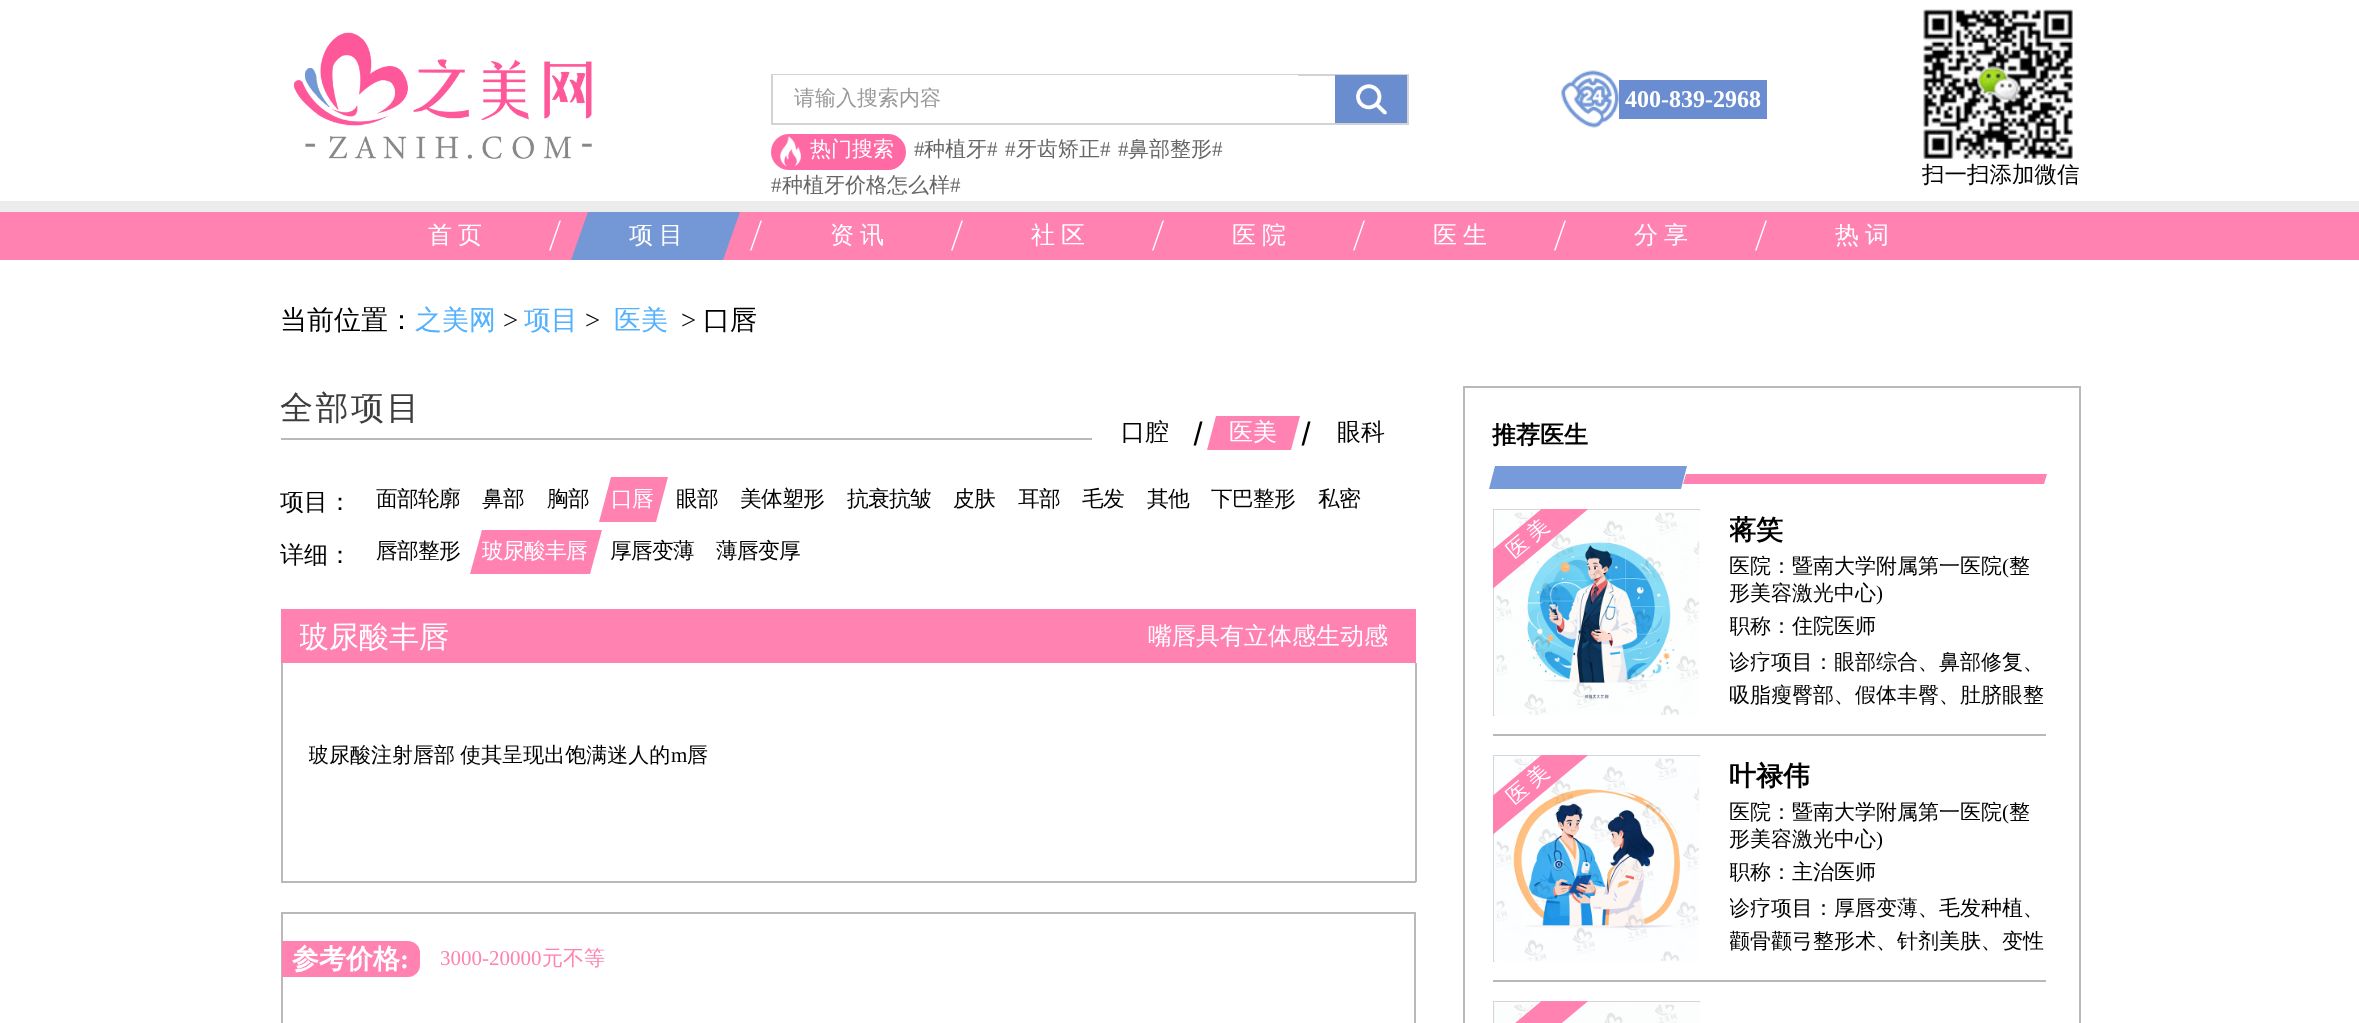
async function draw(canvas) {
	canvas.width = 2359;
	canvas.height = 1023;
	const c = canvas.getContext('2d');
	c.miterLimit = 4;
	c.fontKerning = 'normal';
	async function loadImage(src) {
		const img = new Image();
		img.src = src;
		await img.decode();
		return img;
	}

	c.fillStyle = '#fff';
	c.fillRect(0, 0, 2359, 1023);
	c.drawImage(await loadImage('img1.png'), 294, 32, 298, 127);
	c.strokeStyle = '#d3d3d3';
	c.lineWidth = 2;
	c.strokeRect(772, 75, 636, 49);
	c.fillRect(773, 75, 525, 1);
	c.font = '500 21px WenQuanYi Zen Hei';
	c.fillStyle = '#999';
	c.fillText('请输入搜索内容', 794, 105);
	c.fillStyle = '#6a8dd0';
	c.fillRect(1335, 75, 72, 48);
	c.drawImage(await loadImage('img2.png'), 1356, 84, 31, 31);
	c.fillStyle = '#ff6aa5';
	c.beginPath();
	c.roundRect(771, 134, 135, 36, 18);
	c.fill();
	c.drawImage(await loadImage('img3.png'), 780, 136, 21, 31);
	c.fillStyle = '#fff';
	c.fillText('热门搜索', 810, 156);
	c.font = '21px Liberation Serif';
	c.fillStyle = '#676767';
	c.fillText('#', 914, 156);
	c.font = '500 21px WenQuanYi Zen Hei';
	c.fillText('种植牙', 924, 156);
	c.font = '21px Liberation Serif';
	c.fillText('#', 987, 156);
	c.fillText('#', 1005, 156);
	c.font = '500 21px WenQuanYi Zen Hei';
	c.fillText('牙齿矫正', 1016, 156);
	c.font = '21px Liberation Serif';
	c.fillText('#', 1100, 156);
	c.fillText('#', 1118, 156);
	c.font = '500 21px WenQuanYi Zen Hei';
	c.fillText('鼻部整形', 1128, 156);
	c.font = '21px Liberation Serif';
	c.fillText('#', 1212, 156);
	c.fillText('#', 771, 192);
	c.font = '500 21px WenQuanYi Zen Hei';
	c.fillText('种植牙价格怎么样', 782, 192);
	c.font = '21px Liberation Serif';
	c.fillText('#', 950, 192);
	c.drawImage(await loadImage('img4.png'), 1561, 70, 58, 58);
	c.fillStyle = '#698dd0';
	c.fillRect(1619, 80, 148, 39);
	c.font = 'bold 24px Liberation Serif';
	c.fillStyle = '#fff';
	c.fillText('400-839-2968', 1625, 107);
	c.drawImage(await loadImage('img5.png'), 1923, 9, 150, 150);
	c.font = '500 22.5px WenQuanYi Zen Hei';
	c.fillStyle = '#000';
	c.fillText('扫一扫添加微信', 1922, 182);
	c.fillStyle = '#ececec';
	c.fillRect(0, 201, 2359, 11);
	c.fillStyle = '#ff82b1';
	c.fillRect(0, 212, 2359, 48);
	c.fillStyle = '#fff';
	c.beginPath();
	c.moveTo(559.5, 220.5);
	c.lineTo(561, 220.5);
	c.lineTo(550.5, 250.5);
	c.lineTo(549, 250.5);
	c.closePath();
	c.fill();
	c.font = '500 24px WenQuanYi Zen Hei';
	c.fillText('首', 428, 243);
	c.fillText('页', 458, 243);
	c.beginPath();
	c.moveTo(760.5, 220.5);
	c.lineTo(762, 220.5);
	c.lineTo(751.5, 250.5);
	c.lineTo(750, 250.5);
	c.closePath();
	c.fill();
	c.fillStyle = '#7498d6';
	c.beginPath();
	c.moveTo(588, 212);
	c.lineTo(740, 212);
	c.lineTo(723, 260);
	c.lineTo(571, 260);
	c.closePath();
	c.fill();
	c.fillStyle = '#fff';
	c.fillText('项', 629, 243);
	c.fillText('目', 659, 243);
	c.beginPath();
	c.moveTo(961.5, 220.5);
	c.lineTo(963, 220.5);
	c.lineTo(952.5, 250.5);
	c.lineTo(951, 250.5);
	c.closePath();
	c.fill();
	c.fillText('资', 830, 243);
	c.fillText('讯', 860, 243);
	c.beginPath();
	c.moveTo(1162.5, 220.5);
	c.lineTo(1164, 220.5);
	c.lineTo(1153.5, 250.5);
	c.lineTo(1152, 250.5);
	c.closePath();
	c.fill();
	c.fillText('社', 1031, 243);
	c.fillText('区', 1061, 243);
	c.beginPath();
	c.moveTo(1363.5, 220.5);
	c.lineTo(1365, 220.5);
	c.lineTo(1354.5, 250.5);
	c.lineTo(1353, 250.5);
	c.closePath();
	c.fill();
	c.fillText('医', 1232, 243);
	c.fillText('院', 1262, 243);
	c.beginPath();
	c.moveTo(1564.5, 220.5);
	c.lineTo(1566, 220.5);
	c.lineTo(1555.5, 250.5);
	c.lineTo(1554, 250.5);
	c.closePath();
	c.fill();
	c.fillText('医', 1433, 243);
	c.fillText('生', 1463, 243);
	c.beginPath();
	c.moveTo(1765.5, 220.5);
	c.lineTo(1767, 220.5);
	c.lineTo(1756.5, 250.5);
	c.lineTo(1755, 250.5);
	c.closePath();
	c.fill();
	for (const [text, x, y] of [
		['分', 1634, 243],
		['享', 1664, 243],
		['热', 1835, 243],
		['词', 1865, 243],
	]) {
		c.fillText(text, x, y);
	}
	c.font = '500 27px WenQuanYi Zen Hei';
	c.fillStyle = '#000';
	c.fillText('当前位置：', 280, 329);
	c.fillStyle = '#54b1fd';
	c.fillText('之美网', 415, 329);
	c.font = '27px Liberation Serif';
	c.fillStyle = '#000';
	c.fillText('>', 503, 329);
	c.font = '500 27px WenQuanYi Zen Hei';
	c.fillStyle = '#54b1fd';
	c.fillText('项目', 524, 329);
	c.font = '27px Liberation Serif';
	c.fillStyle = '#000';
	c.fillText('>', 585, 329);
	c.font = '500 27px WenQuanYi Zen Hei';
	c.fillStyle = '#54b1fd';
	c.fillText('医美', 614, 329);
	c.font = '27px Liberation Serif';
	c.fillStyle = '#000';
	c.fillText('>', 681, 329);
	c.font = '500 27px WenQuanYi Zen Hei';
	c.fillText('口唇', 703, 329);
	c.fillStyle = '#b9b9b9';
	c.fillRect(281, 438, 811, 2);
	c.letterSpacing = '2.5px';
	c.font = '500 33px WenQuanYi Zen Hei';
	c.fillStyle = '#3d3d3d';
	c.fillText('全部项目', 280, 419);
	c.letterSpacing = '0px';
	c.font = '500 24px WenQuanYi Zen Hei';
	c.fillStyle = '#000';
	c.fillText('口腔', 1121, 440);
	c.beginPath();
	c.moveTo(1200, 421.5);
	c.lineTo(1202.5, 421.5);
	c.lineTo(1196, 445.5);
	c.lineTo(1193.5, 445.5);
	c.closePath();
	c.fill();
	c.fillStyle = '#ff82b2';
	c.beginPath();
	c.moveTo(1216, 416);
	c.lineTo(1300, 416);
	c.lineTo(1291, 450);
	c.lineTo(1207, 450);
	c.closePath();
	c.fill();
	c.fillStyle = '#fff';
	c.fillText('医美', 1229, 440);
	c.fillStyle = '#000';
	c.beginPath();
	c.moveTo(1308, 421.5);
	c.lineTo(1310.5, 421.5);
	c.lineTo(1304, 445.5);
	c.lineTo(1301.5, 445.5);
	c.closePath();
	c.fill();
	c.fillText('眼科', 1337, 440);
	c.fillText('项目：', 280, 510);
	c.letterSpacing = '-0.75px';
	c.font = '500 21.75px WenQuanYi Zen Hei';
	for (const [text, x, y] of [
		['面部轮廓', 376, 506],
		['鼻部', 482, 506],
		['胸部', 547, 506],
	]) {
		c.fillText(text, x, y);
	}
	c.fillStyle = '#ff82b1';
	c.beginPath();
	c.moveTo(611, 477);
	c.lineTo(668, 477);
	c.lineTo(656, 522);
	c.lineTo(599, 522);
	c.closePath();
	c.fill();
	c.fillStyle = '#fff';
	c.fillText('口唇', 611, 506);
	c.fillStyle = '#000';
	for (const [text, x, y] of [
		['眼部', 676, 506],
		['美体塑形', 740, 506],
		['抗衰抗皱', 847, 506],
		['皮肤', 953, 506],
		['耳部', 1018, 506],
		['毛发', 1082, 506],
		['其他', 1147, 506],
		['下巴整形', 1211, 506],
		['私密', 1318, 506],
	]) {
		c.fillText(text, x, y);
	}
	c.letterSpacing = '0px';
	c.font = '500 24px WenQuanYi Zen Hei';
	c.fillText('详细：', 280, 563);
	c.letterSpacing = '-0.75px';
	c.font = '500 21.75px WenQuanYi Zen Hei';
	c.fillText('唇部整形', 376, 558);
	c.fillStyle = '#ff82b1';
	c.beginPath();
	c.moveTo(482, 530);
	c.lineTo(602, 530);
	c.lineTo(590, 574);
	c.lineTo(470, 574);
	c.closePath();
	c.fill();
	c.fillStyle = '#fff';
	c.fillText('玻尿酸丰唇', 482, 558);
	c.fillStyle = '#000';
	c.fillText('厚唇变薄', 610, 558);
	c.fillText('薄唇变厚', 716, 558);
	c.fillStyle = '#ff82b1';
	c.fillRect(281, 609, 1135, 54);
	c.save();
	c.beginPath();
	c.rect(300, 609, 341, 54);
	c.clip();
	c.letterSpacing = '0px';
	c.font = '500 30px WenQuanYi Zen Hei';
	c.fillStyle = '#fff';
	c.fillText('玻尿酸丰唇', 299, 647);
	c.restore();
	c.letterSpacing = '0px';
	c.font = '500 24px WenQuanYi Zen Hei';
	c.fillStyle = '#fff';
	c.fillText('嘴唇具有立体感生动感', 1148, 644);
	for (const [x, y, w, h, color] of [
		[1415, 663, 2, 219, '#b9b9b9'],
		[281, 881, 1135, 2, '#b9b9b9'],
		[281, 663, 2, 219, '#b9b9b9'],
	]) {
		c.fillStyle = color;
		c.fillRect(x, y, w, h);
	}
	c.save();
	c.beginPath();
	c.rect(309, 741, 1079, 30);
	c.clip();
	c.wordSpacing = '-1px';
	c.font = '500 21px WenQuanYi Zen Hei';
	c.fillStyle = '#000';
	c.fillText('玻尿酸注射唇部 使其呈现出饱满迷人的', 308, 762);
	c.restore();
	c.font = '21px Liberation Serif';
	c.fillStyle = '#000';
	c.fillText('m', 671, 762);
	c.font = '500 21px WenQuanYi Zen Hei';
	c.fillText('唇', 687, 762);
	c.strokeStyle = '#b9b9b9';
	c.strokeRect(282, 913, 1133, 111);
	c.fillStyle = '#ff82b1';
	c.beginPath();
	c.roundRect(282, 941, 138, 36, [0, 12, 12, 0]);
	c.fill();
	c.font = 'bold 27px WenQuanYi Zen Hei';
	c.fillStyle = '#fff';
	c.fillText('参考价格', 292, 968);
	c.font = 'bold 27px Liberation Serif';
	c.fillText(':', 400, 968);
	c.font = '21px Liberation Serif';
	c.fillStyle = '#ff82b1';
	c.fillText('3000-20000', 440, 965);
	c.font = '500 21px WenQuanYi Zen Hei';
	c.fillText('元不等', 542, 965);
	c.strokeRect(1464, 387, 616, 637);
	c.font = 'bold 24px WenQuanYi Zen Hei';
	c.fillStyle = '#000';
	c.fillText('推荐医生', 1492, 443);
	c.fillStyle = '#779ada';
	c.beginPath();
	c.moveTo(1495, 466);
	c.lineTo(1687, 466);
	c.lineTo(1681, 489);
	c.lineTo(1489, 489);
	c.closePath();
	c.fill();
	c.fillStyle = '#ff82b1';
	c.beginPath();
	c.moveTo(1686, 474);
	c.lineTo(2047, 474);
	c.lineTo(2044, 484);
	c.lineTo(1683, 484);
	c.closePath();
	c.fill();
	c.fillStyle = '#b8b8b8';
	c.fillRect(1493, 734, 553, 2);
	c.save();
	c.beginPath();
	c.rect(1493, 509, 207, 207);
	c.clip();
	c.strokeStyle = '#d6d6d6';
	c.strokeRect(1494, 510, 208, 208);
	c.restore();
	c.drawImage(await loadImage('img6.png'), 1494, 510, 206, 206);
	c.save();
	c.beginPath();
	c.rect(1493, 509, 207, 207);
	c.clip();
	c.fillStyle = '#ff82b1';
	c.beginPath();
	c.moveTo(1490, 552);
	c.lineTo(1605, 456);
	c.lineTo(1605, 495);
	c.lineTo(1490, 591);
	c.closePath();
	c.fill();
	c.restore();
	c.wordSpacing = '-1px';
	c.font = '500 21px WenQuanYi Zen Hei';
	c.fillStyle = '#fff';
	c.save();
	c.translate(1514, 559);
	c.rotate(-40 * Math.PI / 180);
	c.fillText('医 美', 0, 0);
	c.restore();
	c.save();
	c.beginPath();
	c.rect(1730, 512, 316, 36);
	c.clip();
	c.wordSpacing = '0px';
	c.font = 'bold 27px WenQuanYi Zen Hei';
	c.fillStyle = '#000';
	c.fillText('蒋笑', 1729, 539);
	c.restore();
	c.wordSpacing = '0px';
	c.fillStyle = '#000';
	c.fillText('医院：暨南大学附属第一医院', 1729, 573);
	c.font = '21px Liberation Serif';
	c.fillText('(', 2002, 573);
	c.font = '500 21px WenQuanYi Zen Hei';
	c.fillText('整', 2009, 573);
	c.fillText('形美容激光中心', 1729, 600);
	c.font = '21px Liberation Serif';
	c.fillText(')', 1876, 600);
	c.save();
	c.beginPath();
	c.rect(1730, 614, 316, 27);
	c.clip();
	c.font = '500 21px WenQuanYi Zen Hei';
	c.fillText('职称：住院医师', 1729, 633);
	c.restore();
	c.save();
	c.beginPath();
	c.rect(1730, 647, 316, 66);
	c.clip();
	c.font = '500 21px WenQuanYi Zen Hei';
	c.fillText('诊疗项目：眼部综合、鼻部修复、', 1729, 669);
	c.fillText('吸脂瘦臀部、假体丰臀、肚脐眼整', 1729, 702);
	c.restore();
	c.fillStyle = '#b8b8b8';
	c.fillRect(1493, 980, 553, 2);
	c.save();
	c.beginPath();
	c.rect(1493, 755, 207, 207);
	c.clip();
	c.strokeStyle = '#d6d6d6';
	c.strokeRect(1494, 756, 208, 208);
	c.restore();
	c.drawImage(await loadImage('img7.png'), 1494, 756, 206, 206);
	c.save();
	c.beginPath();
	c.rect(1493, 755, 207, 207);
	c.clip();
	c.fillStyle = '#ff82b1';
	c.beginPath();
	c.moveTo(1490, 798);
	c.lineTo(1605, 702);
	c.lineTo(1605, 741);
	c.lineTo(1490, 837);
	c.closePath();
	c.fill();
	c.restore();
	c.wordSpacing = '-1px';
	c.font = '500 21px WenQuanYi Zen Hei';
	c.fillStyle = '#fff';
	c.save();
	c.translate(1514, 805);
	c.rotate(-40 * Math.PI / 180);
	c.fillText('医 美', 0, 0);
	c.restore();
	c.wordSpacing = '0px';
	c.font = 'bold 27px WenQuanYi Zen Hei';
	c.fillStyle = '#000';
	c.fillText('叶禄伟', 1729, 785);
	c.font = '500 21px WenQuanYi Zen Hei';
	c.fillText('医院：暨南大学附属第一医院', 1729, 819);
	c.font = '21px Liberation Serif';
	c.fillText('(', 2002, 819);
	c.font = '500 21px WenQuanYi Zen Hei';
	c.fillText('整', 2009, 819);
	c.fillText('形美容激光中心', 1729, 846);
	c.font = '21px Liberation Serif';
	c.fillText(')', 1876, 846);
	c.save();
	c.beginPath();
	c.rect(1730, 860, 316, 27);
	c.clip();
	c.font = '500 21px WenQuanYi Zen Hei';
	c.fillText('职称：主治医师', 1729, 879);
	c.restore();
	c.save();
	c.beginPath();
	c.rect(1730, 893, 316, 66);
	c.clip();
	c.font = '500 21px WenQuanYi Zen Hei';
	c.fillText('诊疗项目：厚唇变薄、毛发种植、', 1729, 915);
	c.fillText('颧骨颧弓整形术、针剂美肤、变性', 1729, 948);
	c.restore();
	c.save();
	c.beginPath();
	c.rect(1493, 1001, 207, 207);
	c.clip();
	c.strokeStyle = '#d6d6d6';
	c.strokeRect(1494, 1002, 208, 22);
	c.restore();
	c.drawImage(await loadImage('img8.png'), 1494, 1002, 206, 21);
	c.save();
	c.beginPath();
	c.rect(1493, 1001, 207, 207);
	c.clip();
	c.fillStyle = '#ff82b1';
	c.beginPath();
	c.moveTo(1490, 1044);
	c.lineTo(1605, 948);
	c.lineTo(1605, 987);
	c.lineTo(1490, 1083);
	c.closePath();
	c.fill();
	c.restore();
}

draw(document.querySelector('canvas'));
